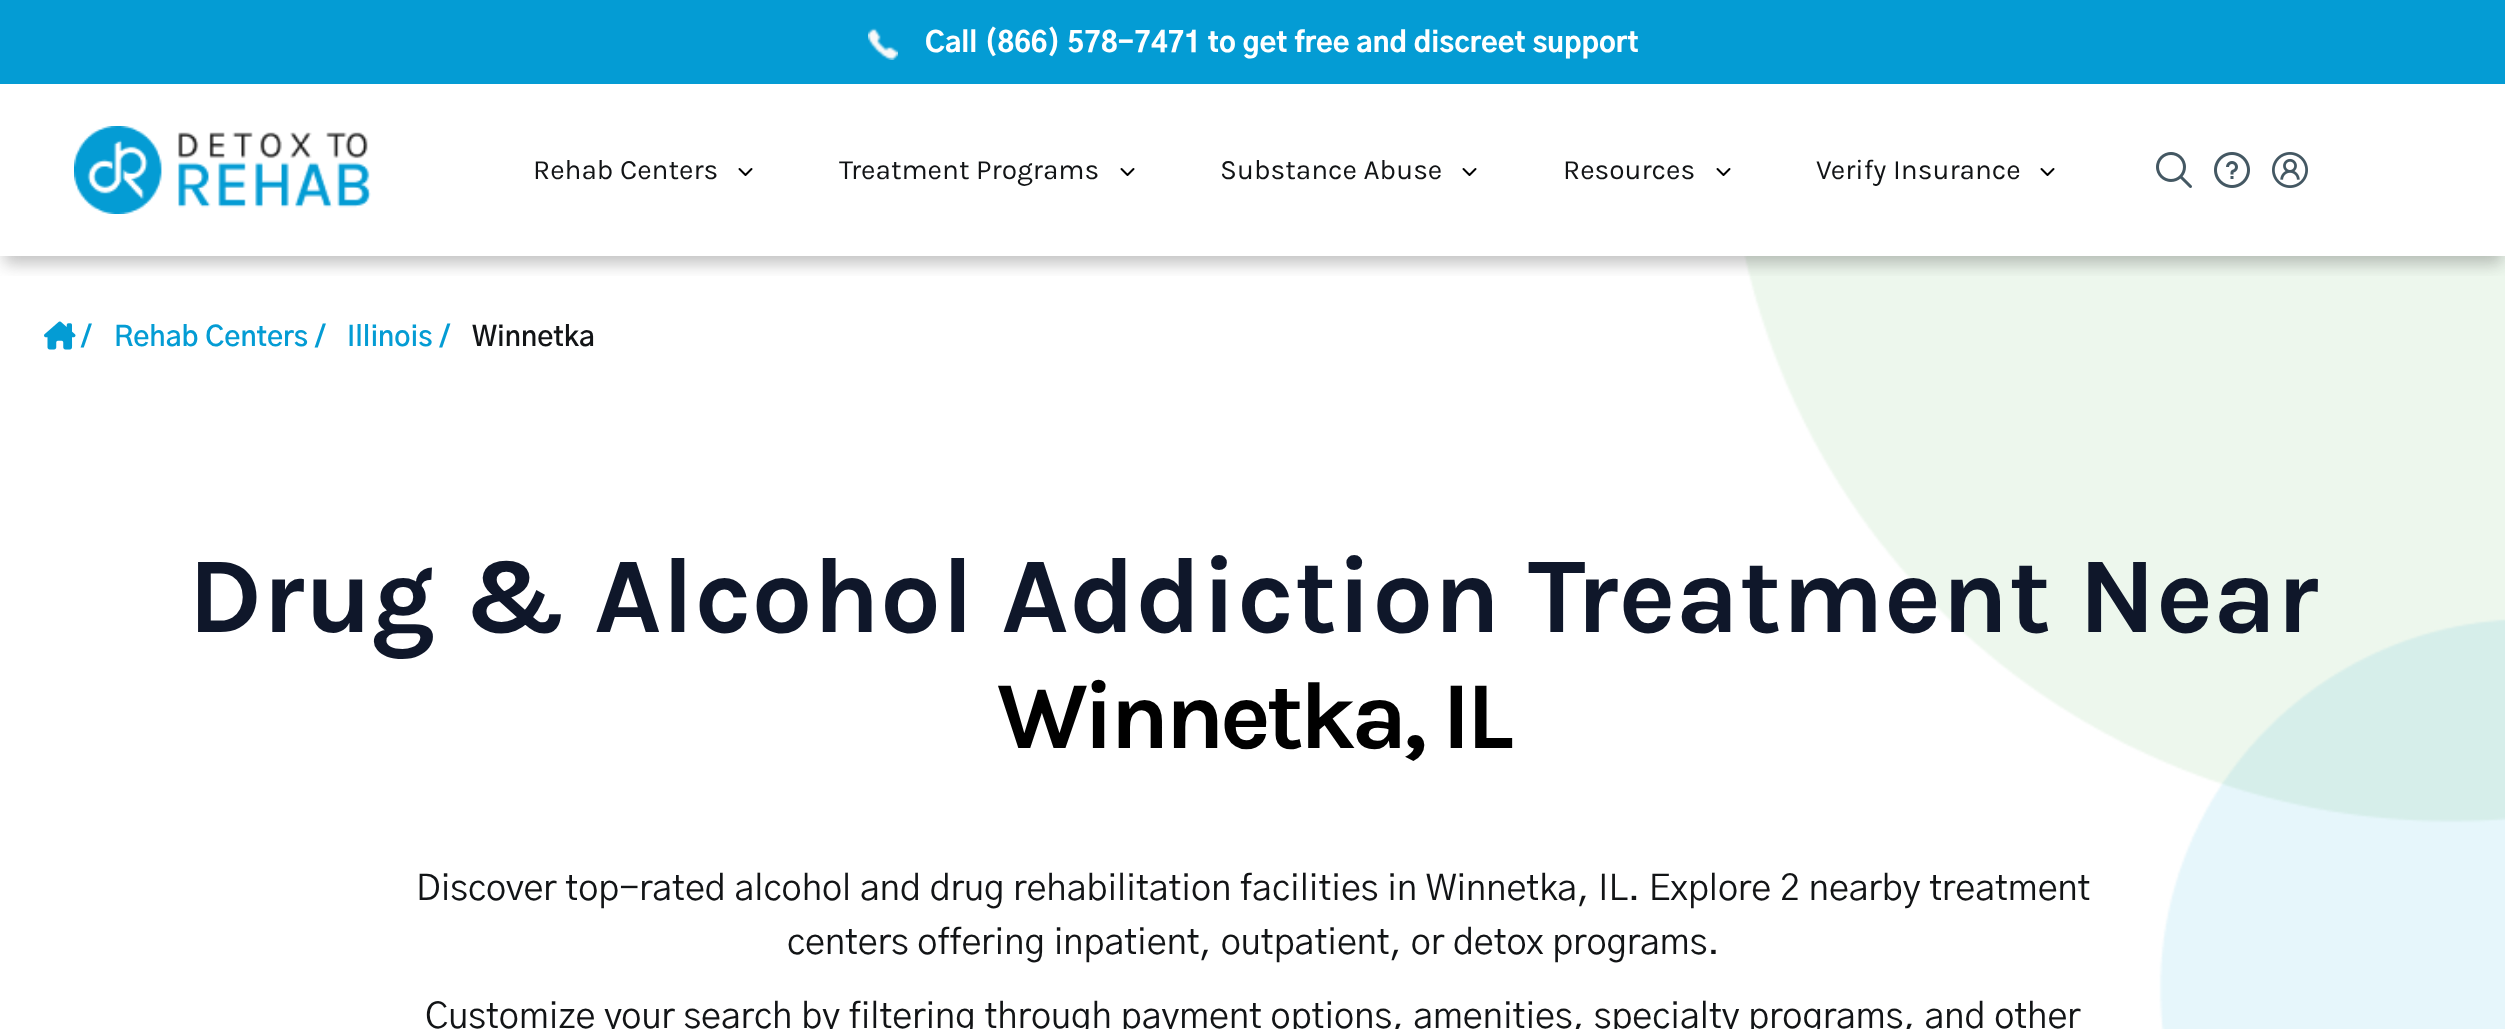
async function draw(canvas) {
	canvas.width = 2505;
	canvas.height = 1029;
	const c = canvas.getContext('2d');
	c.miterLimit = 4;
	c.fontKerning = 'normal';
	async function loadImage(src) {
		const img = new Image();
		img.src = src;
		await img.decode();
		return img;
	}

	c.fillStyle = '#fff';
	c.fillRect(0, 0, 2505, 1029);
	c.drawImage(await loadImage('img6.png'), 1744, 256, 761, 773);
	c.save();
	c.beginPath();
	c.rect(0, 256, 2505, 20);
	c.clip();
	c.fillStyle = '#3c3c3c4f';
	c.filter = 'blur(8px)';
	c.beginPath();
	c.rect(4, 16, 2498, 248);
	c.fill();
	c.filter = 'none';
	c.restore();
	c.fillStyle = '#049cd4';
	c.fillRect(0, 0, 2505, 84);
	c.drawImage(await loadImage('img1.png'), 868, 28, 30, 32);
	c.font = '800 28px "Gothic A1"';
	c.fillStyle = '#fff';
	c.fillText('Call (866) 578-7471 to get free and discreet support', 925, 52);
	c.drawImage(await loadImage('img2.png'), 74, 126, 297, 88);
	c.font = '28px Karla';
	c.fillStyle = '#121416';
	c.fillText('Rehab Centers', 533, 179);
	c.beginPath();
	c.moveTo(739.5, 169);
	c.lineTo(745.5, 175);
	c.lineTo(751.5, 169);
	c.strokeStyle = '#000';
	c.lineWidth = 2;
	c.lineCap = 'round';
	c.lineJoin = 'round';
	c.stroke();
	c.fillText('Treatment Programs', 839, 179);
	c.beginPath();
	c.moveTo(1121.5, 169);
	c.lineTo(1127.5, 175);
	c.lineTo(1133.5, 169);
	c.stroke();
	c.fillText('Substance Abuse', 1220, 179);
	c.beginPath();
	c.moveTo(1463.5, 169);
	c.lineTo(1469.5, 175);
	c.lineTo(1475.5, 169);
	c.stroke();
	c.fillText('Resources', 1563, 179);
	c.beginPath();
	c.moveTo(1717.5, 169);
	c.lineTo(1723.5, 175);
	c.lineTo(1729.5, 169);
	c.stroke();
	c.fillText('Verify Insurance', 1816, 179);
	c.beginPath();
	c.moveTo(2041.5, 169);
	c.lineTo(2047.5, 175);
	c.lineTo(2053.5, 169);
	c.stroke();
	c.drawImage(await loadImage('img3.png'), 2156, 152, 36, 36);
	c.drawImage(await loadImage('img4.png'), 2214, 152, 36, 36);
	c.drawImage(await loadImage('img5.png'), 2272, 152, 36, 36);
	c.drawImage(await loadImage('img7.png'), 44, 321, 32, 29);
	c.font = '600 28px "Gothic A1"';
	c.fillStyle = '#049cd4';
	for (const [text, x, y] of [
		['/', 81, 346],
		['Rehab Centers /', 114, 346],
		['Illinois /', 347, 346],
	]) {
		c.fillText(text, x, y);
	}
	c.fillStyle = '#121416';
	c.fillText('Winnetka', 472, 346);
	c.font = 'bold 108px Karla';
	c.fillStyle = '#0f172a';
	c.fillText('Drug & Alcohol Addiction Treatment Near', 188, 632);
	c.letterSpacing = '-4.75px';
	c.font = 'bold 96px Karla';
	c.fillStyle = '#000';
	c.fillText('Winnetka, IL', 997, 748);
	c.letterSpacing = '0px';
	c.font = '36px "Gothic A1"';
	c.fillStyle = '#121416';
	for (const [text, x, y] of [
		['Discover top-rated alcohol and drug rehabilitation facilities in Winnetka, IL. Explore 2 nearby treatment', 416, 900],
		['centers offering inpatient, outpatient, or detox programs.', 787, 954],
		['Customize your search by filtering through payment options, amenities, specialty programs, and other', 425, 1028],
	]) {
		c.fillText(text, x, y);
	}
}

draw(document.querySelector('canvas'));
